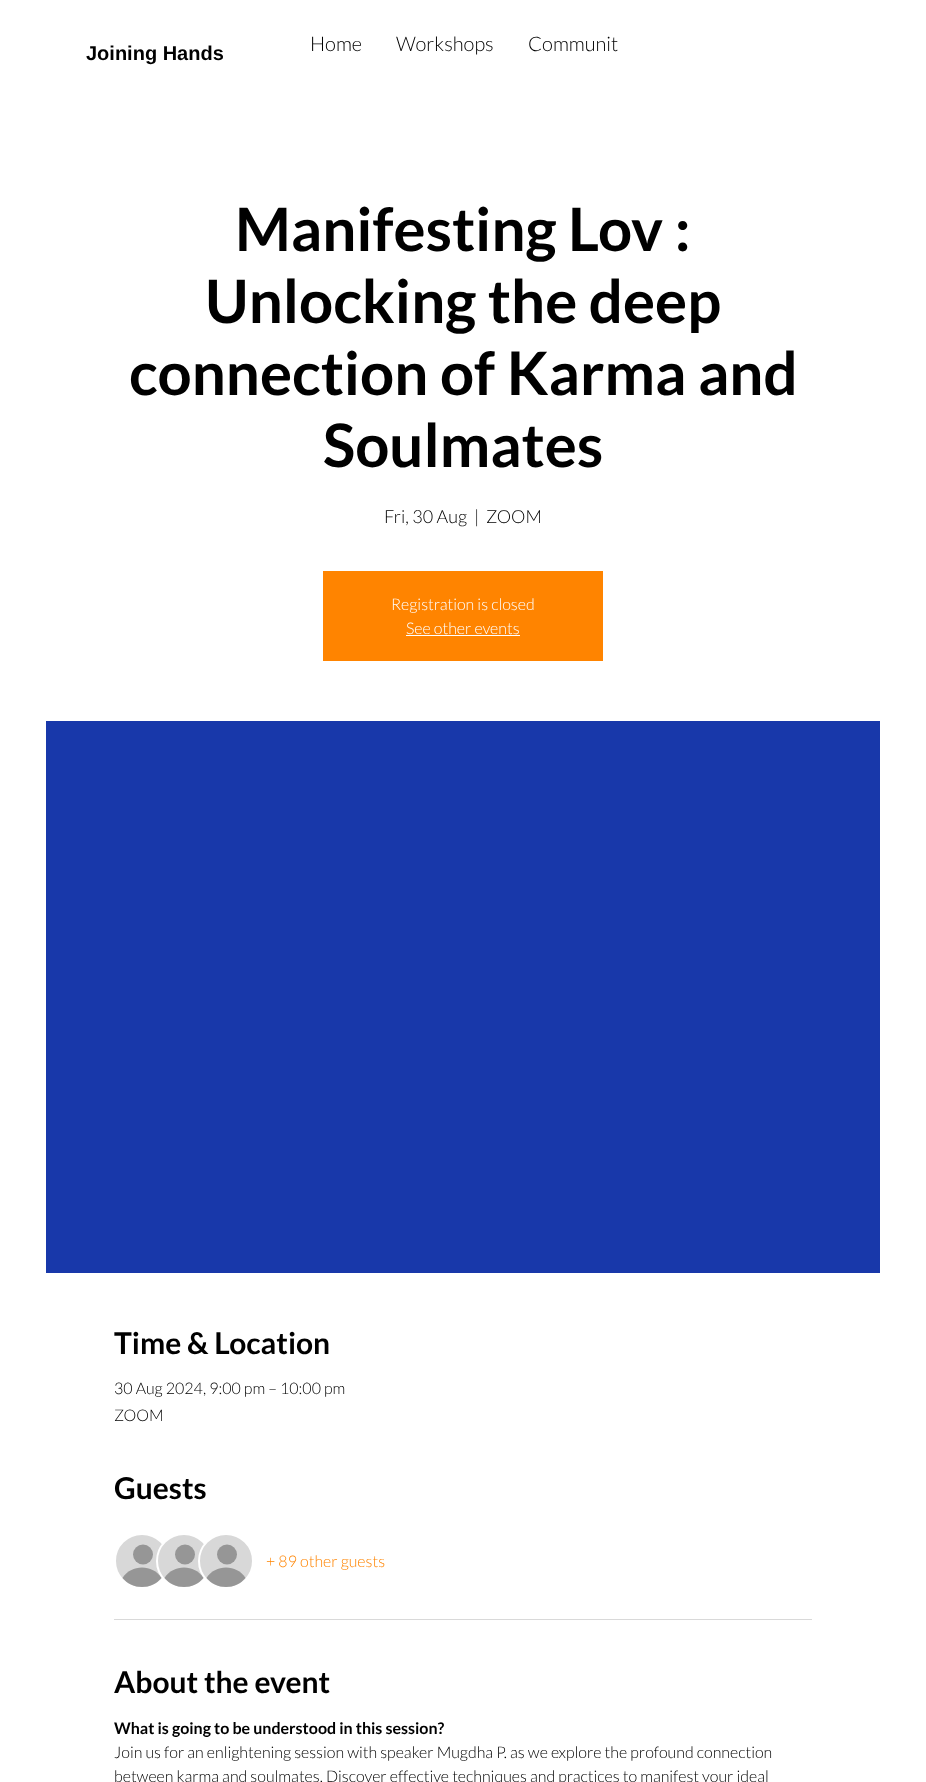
async function draw(canvas) {
	canvas.width = 926;
	canvas.height = 1782;
	const c = canvas.getContext('2d');
	c.miterLimit = 4;
	c.fontKerning = 'normal';

	c.fillStyle = '#fff';
	c.fillRect(0, 0, 926, 1782);
	c.font = 'bold 20px Liberation Sans';
	c.fillStyle = '#000';
	c.fillText('Joining Hands', 86, 60);
	c.font = '300 20px Lato';
	for (const [text, x, y] of [
		['Home', 310, 51],
		['Workshops', 396, 51],
		['Communit', 528, 51],
	]) {
		c.fillText(text, x, y);
	}
	c.font = 'bold 60px Lato';
	for (const [text, x, y] of [
		['Manifesting Lov :', 235, 251],
		['Unlocking the deep', 205, 323],
		['connection of Karma and', 129, 395],
		['Soulmates', 323, 467],
	]) {
		c.fillText(text, x, y);
	}
	c.font = '300 18px Lato';
	for (const [text, x, y] of [
		['Fri, 30 Aug', 384, 523],
		['|', 474, 523],
		['ZOOM', 486, 523],
	]) {
		c.fillText(text, x, y);
	}
	c.fillStyle = '#ff8400';
	c.fillRect(323, 571, 280, 90);
	c.font = '300 16px Lato';
	c.fillStyle = '#fff';
	c.fillText('Registration is closed', 391, 610);
	c.fillText('See other events', 406, 634);
	c.fillRect(406, 635, 114, 1);
	c.fillStyle = '#1838aa';
	c.fillRect(46, 721, 834, 552);
	c.font = 'bold 30px Lato';
	c.fillStyle = '#000';
	c.fillText('Time & Location', 114, 1354);
	c.font = '300 16px Lato';
	c.fillText('30 Aug 2024, 9:00 pm – 10:00 pm', 114, 1394);
	c.fillText('ZOOM', 114, 1421);
	c.font = 'bold 30px Lato';
	c.fillText('Guests', 114, 1499);
	c.fillStyle = '#d8d8d8';
	c.beginPath();
	c.arc(142, 1561, 27, 0, 2 * Math.PI);
	c.fill();
	c.strokeStyle = '#fff';
	c.lineWidth = 2;
	c.stroke();
	c.fillStyle = '#969696';
	c.beginPath();
	c.arc(143, 1554.5, 10, 0, 2 * Math.PI);
	c.fill();
	c.beginPath();
	c.moveTo(161.5, 1578);
	c.bezierCurveTo(151.5, 1590, 132.5, 1590, 122.5, 1578);
	c.bezierCurveTo(131, 1564, 153, 1564, 161.5, 1578);
	c.closePath();
	c.fill();
	c.fillStyle = '#d8d8d8';
	c.beginPath();
	c.arc(184, 1561, 27, 0, 2 * Math.PI);
	c.fill();
	c.stroke();
	c.fillStyle = '#969696';
	c.beginPath();
	c.arc(185, 1554.5, 10, 0, 2 * Math.PI);
	c.fill();
	c.beginPath();
	c.moveTo(203.5, 1578);
	c.bezierCurveTo(193.5, 1590, 174.5, 1590, 164.5, 1578);
	c.bezierCurveTo(173, 1564, 195, 1564, 203.5, 1578);
	c.closePath();
	c.fill();
	c.fillStyle = '#d8d8d8';
	c.beginPath();
	c.arc(226, 1561, 27, 0, 2 * Math.PI);
	c.fill();
	c.stroke();
	c.fillStyle = '#969696';
	c.beginPath();
	c.arc(227, 1554.5, 10, 0, 2 * Math.PI);
	c.fill();
	c.beginPath();
	c.moveTo(245.5, 1578);
	c.bezierCurveTo(235.5, 1590, 216.5, 1590, 206.5, 1578);
	c.bezierCurveTo(215, 1564, 237, 1564, 245.5, 1578);
	c.closePath();
	c.fill();
	c.font = '300 16px Lato';
	c.fillStyle = '#ff8400';
	c.fillText('+ 89 other guests', 266, 1567);
	c.fillStyle = '#d9d9d9';
	c.fillRect(114, 1619, 698, 1);
	c.font = 'bold 30px Lato';
	c.fillStyle = '#000';
	c.fillText('About the event', 114, 1693);
	c.font = 'bold 16px Lato';
	c.fillText('What is going to be understood in this session?', 114, 1734);
	c.font = '300 16px Lato';
	c.fillText('Join us for an enlightening session with speaker Mugdha P. as we explore the profound connection', 114, 1758);
	c.fillText('between karma and soulmates. Discover effective techniques and practices to manifest your ideal', 114, 1782);
}

draw(document.querySelector('canvas'));
